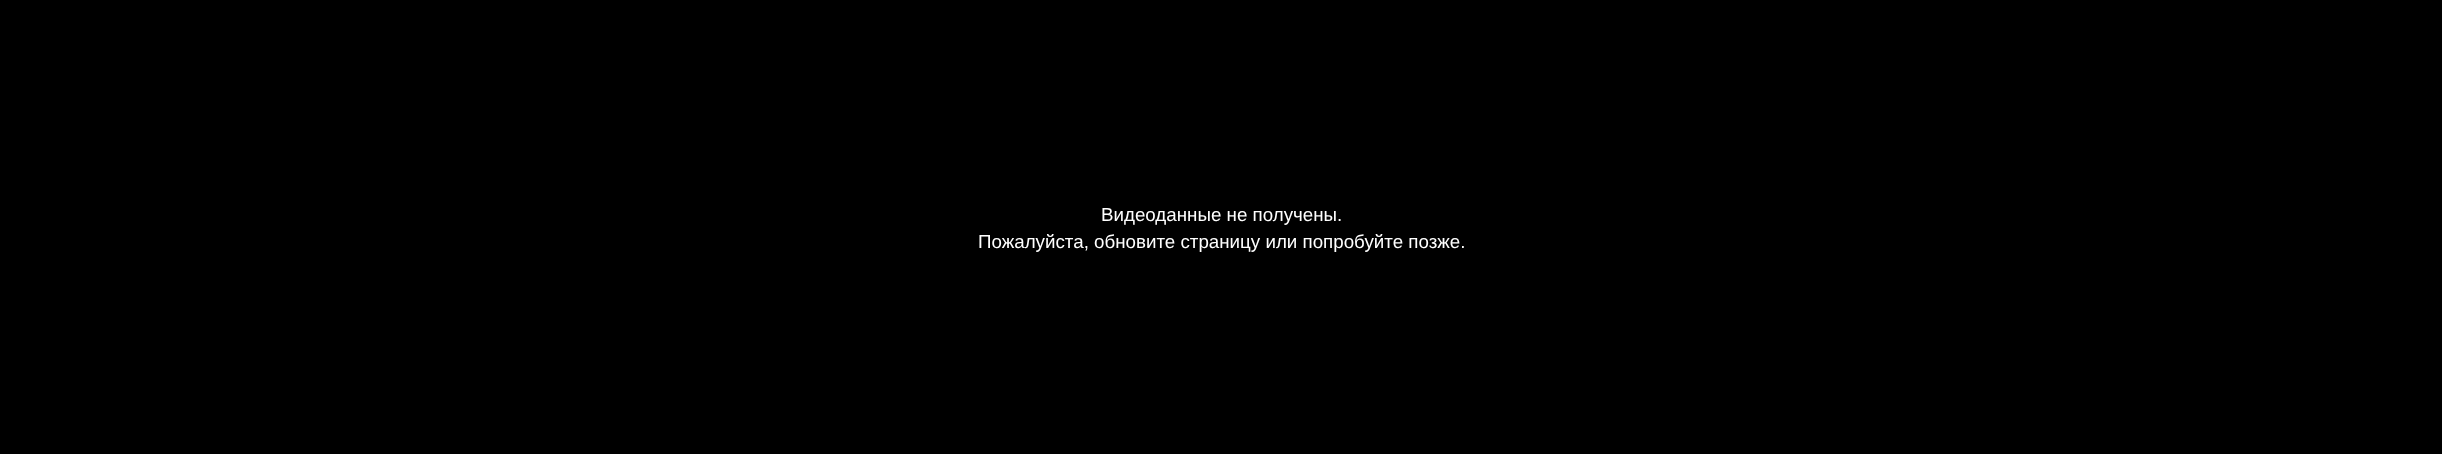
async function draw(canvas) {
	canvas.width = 2442;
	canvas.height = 454;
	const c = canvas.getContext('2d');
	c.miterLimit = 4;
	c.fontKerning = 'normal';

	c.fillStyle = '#000';
	c.fillRect(0, 0, 2442, 454);
	c.font = '18.75px Liberation Sans';
	c.fillStyle = '#fff';
	c.fillText('Видеоданные не получены.', 1101, 221);
	c.fillText('Пожалуйста, обновите страницу или попробуйте позже.', 978, 248);
}

draw(document.querySelector('canvas'));
